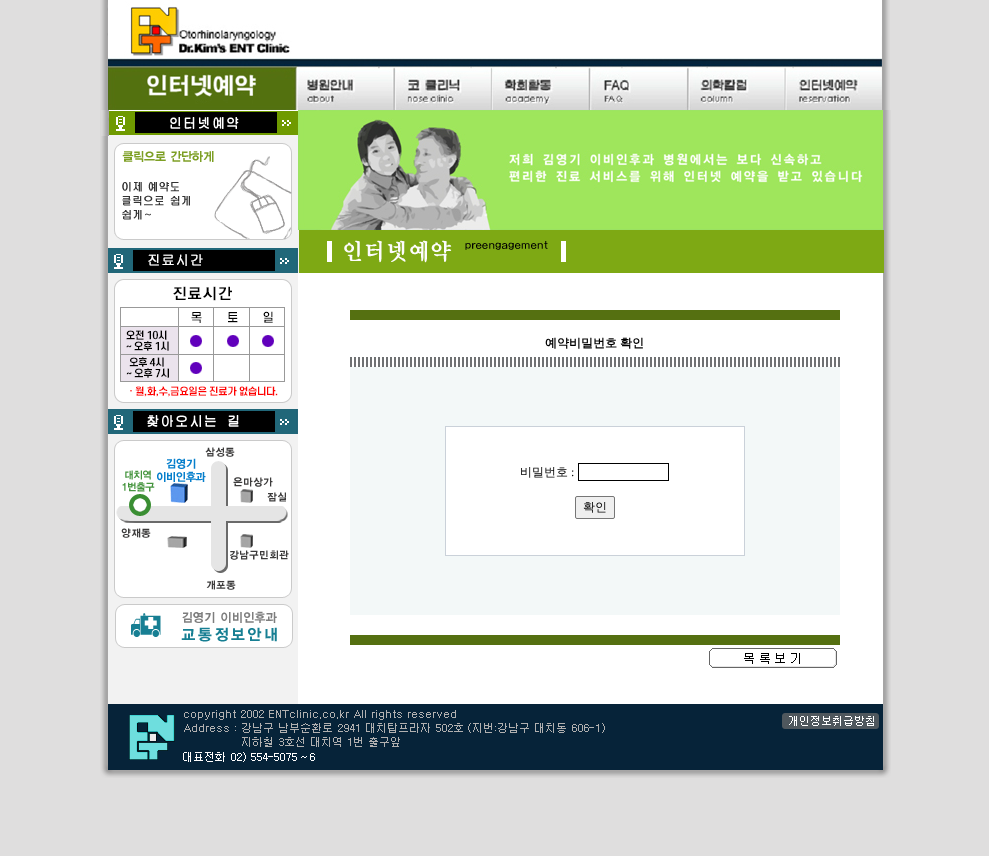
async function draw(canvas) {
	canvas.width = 989;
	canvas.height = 856;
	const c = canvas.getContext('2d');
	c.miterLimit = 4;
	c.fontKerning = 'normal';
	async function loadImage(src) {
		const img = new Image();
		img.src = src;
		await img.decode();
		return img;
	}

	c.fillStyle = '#dfdede';
	c.fillRect(0, 0, 989, 856);
	c.drawImage(await loadImage('img1.png'), 100, 0, 8, 110);
	c.drawImage(await loadImage('img2.png'), 108, 0, 774, 110);
	c.drawImage(await loadImage('img3.png'), 882, 0, 8, 110);
	c.drawImage(await loadImage('img4.png'), 100, 110, 198, 594);
	c.drawImage(await loadImage('img5.png'), 101, 110, 197, 26);
	c.drawImage(await loadImage('img6.png'), 114, 143, 178, 97);
	c.drawImage(await loadImage('img7.png'), 108, 248, 190, 25);
	c.drawImage(await loadImage('img8.png'), 114, 279, 178, 124);
	c.drawImage(await loadImage('img9.png'), 108, 409, 190, 25);
	c.drawImage(await loadImage('img10.png'), 114, 440, 178, 158);
	c.drawImage(await loadImage('img11.png'), 115, 604, 178, 44);
	c.drawImage(await loadImage('img12.png'), 298, 110, 593, 594);
	c.drawImage(await loadImage('img13.png'), 298, 110, 585, 120);
	c.drawImage(await loadImage('img14.png'), 298, 230, 586, 43);
	c.fillStyle = '#557011';
	c.fillRect(350, 310, 490, 10);
	c.font = 'bold 12px WenQuanYi Zen Hei';
	c.fillStyle = '#000';
	c.fillText('예약비밀번호', 545, 347);
	c.fillText('확인', 620, 347);
	c.drawImage(await loadImage('img15.png'), 350, 357, 490, 10);
	for (const [x, y, w, h, color] of [
		[350, 367, 490, 248, '#f3f8f8'],
		[445, 426, 300, 130, '#cad1d9'],
		[446, 427, 298, 128, '#fff'],
	]) {
		c.fillStyle = color;
		c.fillRect(x, y, w, h);
	}
	c.font = '500 12px WenQuanYi Zen Hei';
	c.fillStyle = '#000';
	c.fillText('비밀번호', 520, 476);
	c.font = '12px Liberation Serif';
	c.fillText(':', 571, 476);
	c.strokeStyle = '#000';
	c.strokeRect(578.5, 463.5, 90, 17);
	c.fillStyle = '#efefef';
	c.beginPath();
	c.roundRect(575.5, 496.5, 39, 22, 1.5);
	c.fill();
	c.strokeStyle = '#767676';
	c.stroke();
	c.font = '500 12px WenQuanYi Zen Hei';
	c.fillStyle = '#000';
	c.fillText('확인', 583, 511);
	c.fillStyle = '#557011';
	c.fillRect(350, 635, 490, 10);
	c.drawImage(await loadImage('img16.png'), 709, 648, 128, 20);
	c.drawImage(await loadImage('img17.png'), 100, 704, 791, 74);
}

draw(document.querySelector('canvas'));
